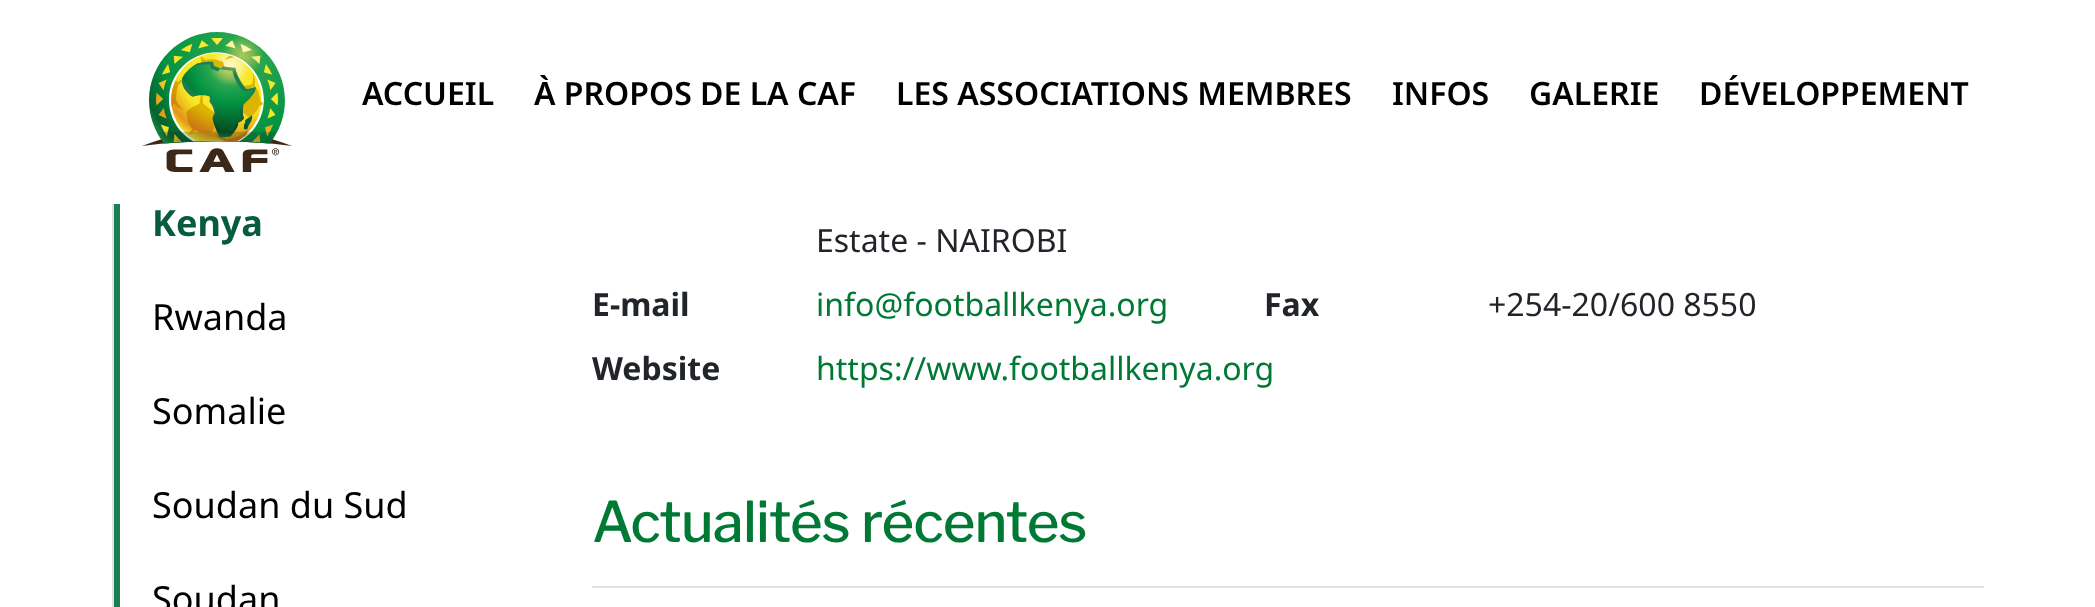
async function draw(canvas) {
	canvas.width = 2095;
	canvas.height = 607;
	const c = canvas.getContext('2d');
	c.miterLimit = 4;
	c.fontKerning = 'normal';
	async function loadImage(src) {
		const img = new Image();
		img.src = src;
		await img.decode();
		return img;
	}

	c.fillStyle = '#fff';
	c.fillRect(0, 0, 2095, 607);
	c.drawImage(await loadImage('img1.png'), 142, 32, 150, 140);
	c.font = '600 32px Noto Sans';
	c.fillStyle = '#000';
	for (const [text, x, y] of [
		['ACCUEIL', 362, 105],
		['À PROPOS DE LA CAF', 534, 105],
		['LES ASSOCIATIONS MEMBRES', 896, 105],
		['INFOS', 1392, 105],
		['GALERIE', 1529, 105],
		['DÉVELOPPEMENT', 1699, 105],
	]) {
		c.fillText(text, x, y);
	}
	c.fillStyle = '#dee2e6';
	c.fillRect(112, 204, 2, 403);
	c.fillStyle = '#1b8051';
	c.fillRect(114, 204, 6, 403);
	c.font = 'bold 36px Noto Sans';
	c.fillStyle = '#075b40';
	c.fillText('Kenya', 152, 236);
	c.font = '36px Noto Sans';
	c.fillStyle = '#000';
	for (const [text, x, y] of [
		['Rwanda', 152, 330],
		['Somalie', 152, 424],
		['Soudan du Sud', 152, 518],
		['Soudan', 152, 612],
	]) {
		c.fillText(text, x, y);
	}
	c.font = '32px Noto Sans';
	c.fillStyle = '#212529';
	c.fillText('Estate - NAIROBI', 816, 252);
	c.font = 'bold 32px Noto Sans';
	c.fillText('E-mail', 592, 316);
	c.font = '32px Noto Sans';
	c.fillStyle = '#007934';
	c.fillText('info@footballkenya.org', 816, 316);
	c.font = 'bold 32px Noto Sans';
	c.fillStyle = '#212529';
	c.fillText('Fax', 1264, 316);
	c.font = '32px Noto Sans';
	c.fillText('+254-20/600 8550', 1488, 316);
	c.font = 'bold 32px Noto Sans';
	c.fillText('Website', 592, 380);
	c.font = '32px Noto Sans';
	c.fillStyle = '#007934';
	c.fillText('https://www.footballkenya.org', 816, 380);
	c.fillStyle = '#dee2e6';
	c.fillRect(592, 586, 1392, 2);
	c.letterSpacing = '-0.8px';
	c.font = '500 56px Libre Franklin';
	c.fillStyle = '#007934';
	c.fillText('Actualités récentes', 592, 542);
}

draw(document.querySelector('canvas'));
